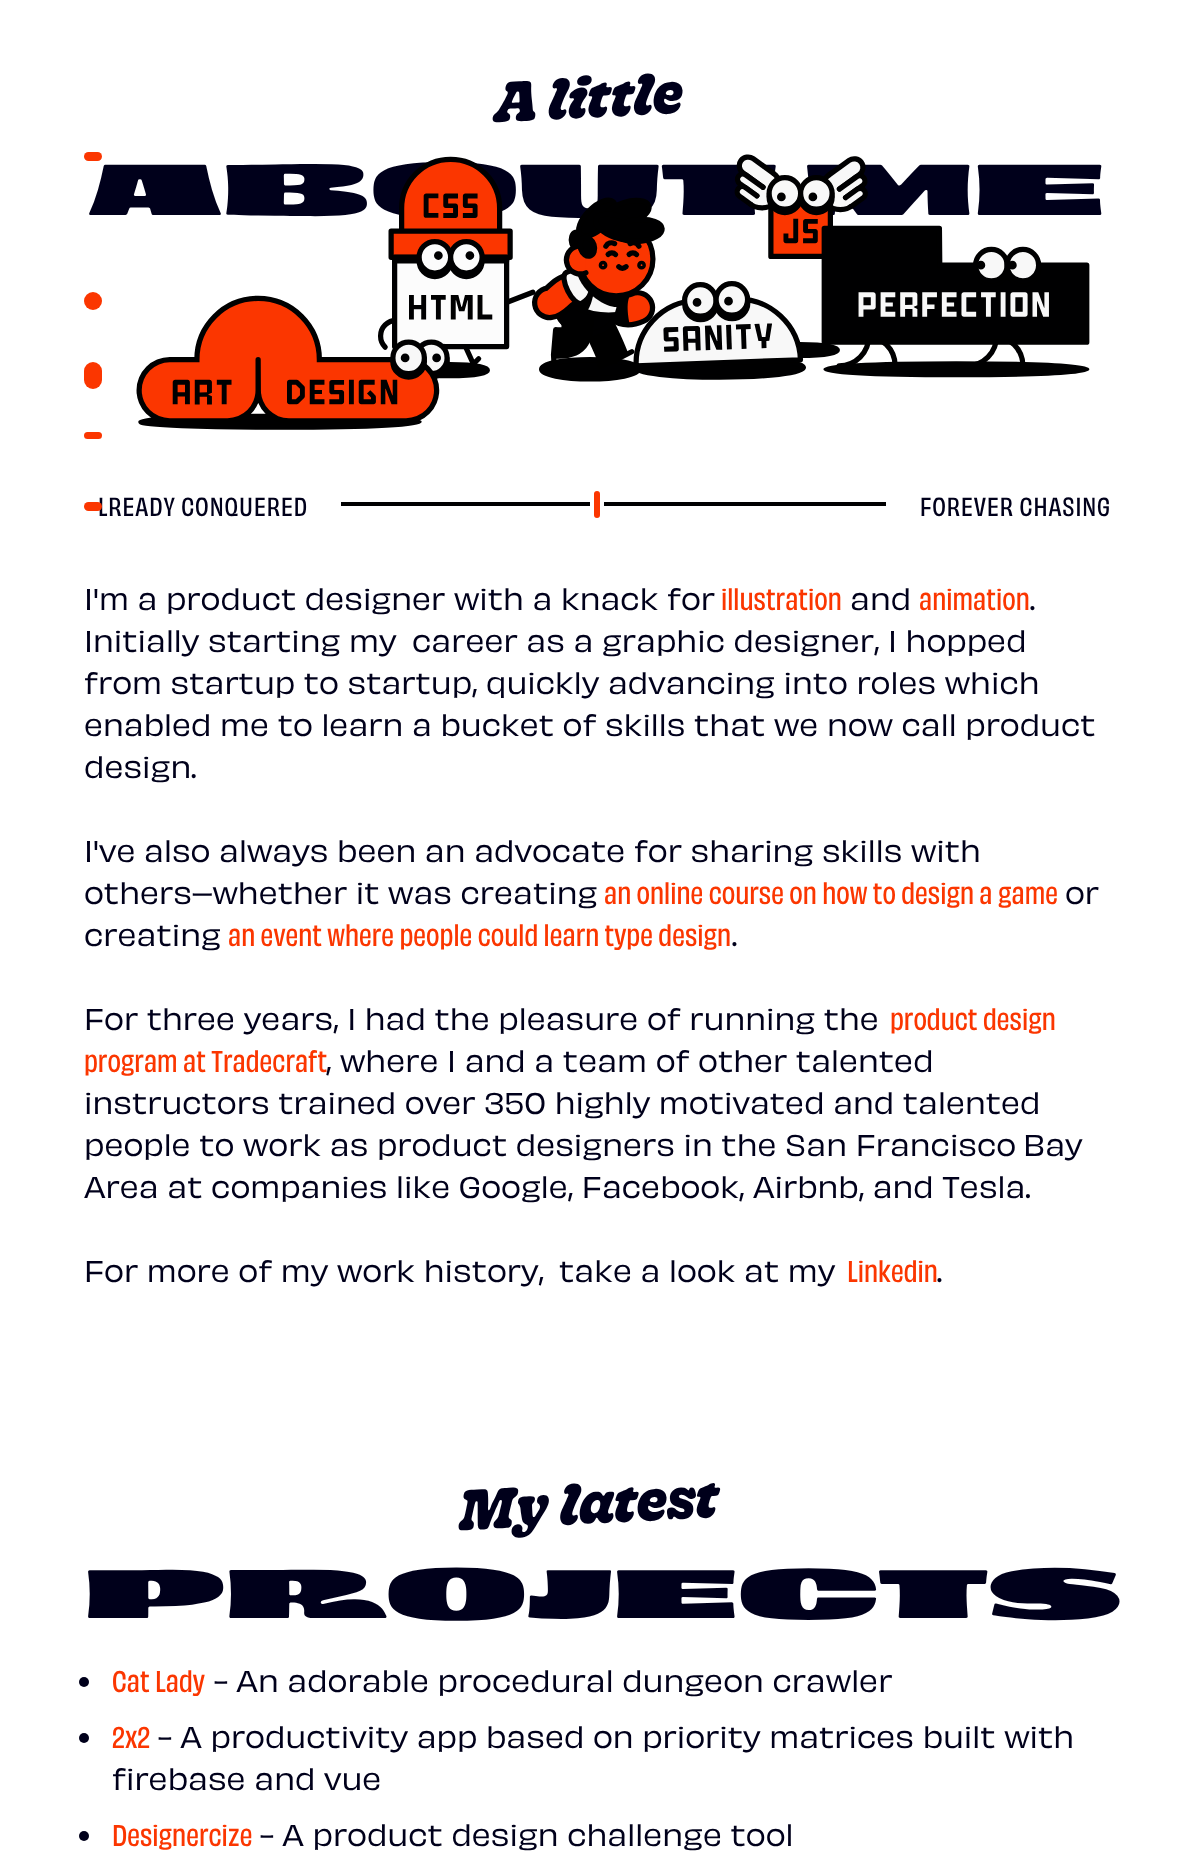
async function draw(canvas) {
	canvas.width = 1192;
	canvas.height = 1866;
	const c = canvas.getContext('2d');
	c.miterLimit = 4;
	c.fontKerning = 'normal';
	async function loadImage(src) {
		const img = new Image();
		img.src = src;
		await img.decode();
		return img;
	}

	c.fillStyle = '#fff';
	c.fillRect(0, 0, 1192, 1866);
	c.font = 'italic bold 56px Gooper';
	c.fillStyle = '#00001b';
	c.save();
	c.translate(495, 122);
	c.rotate(-3 * Math.PI / 180);
	c.fillText('A little', 0, 0);
	c.restore();
	c.fillStyle = '#fb3600';
	c.beginPath();
	c.roundRect(84, 152, 18, 9, 4.5);
	c.fill();
	c.font = '900 71.75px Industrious';
	c.fillStyle = '#00001b';
	c.fillText('About me', 88, 215);
	c.drawImage(await loadImage('img1.png'), 378, 156, 158, 223);
	c.drawImage(await loadImage('img2.png'), 532, 197, 133, 185);
	c.drawImage(await loadImage('img3.png'), 734, 154, 134, 204);
	c.drawImage(await loadImage('img4.png'), 821, 225, 269, 153);
	c.fillStyle = '#fb3600';
	c.beginPath();
	c.arc(93, 301, 9, 0, 2 * Math.PI);
	c.fill();
	c.drawImage(await loadImage('img5.png'), 136, 295, 314, 135);
	c.drawImage(await loadImage('img6.png'), 633, 281, 173, 99);
	c.beginPath();
	c.roundRect(84, 362, 18, 27, 9);
	c.fill();
	c.beginPath();
	c.roundRect(84, 432, 18, 7, 3.5);
	c.fill();
	c.letterSpacing = '0.9px';
	c.font = '500 24.5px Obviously';
	c.fillStyle = '#00001b';
	c.fillText('LREADY CONQUERED', 98, 516);
	c.fillStyle = '#fb3600';
	c.beginPath();
	c.roundRect(84, 502, 18, 9, 4.5);
	c.fill();
	c.fillStyle = '#000001';
	c.fillRect(341, 502, 545, 4);
	c.fillStyle = '#fb3600';
	c.beginPath();
	c.roundRect(592, 489, 10, 31, 5);
	c.fill();
	c.strokeStyle = '#fff';
	c.lineWidth = 4;
	c.stroke();
	c.fillStyle = '#00001b';
	c.fillText('FOREVER CHASING', 920, 516);
	c.letterSpacing = '0px';
	c.font = '28px Obviously';
	c.fillText('I\'m a product designer with a knack for', 84, 610);
	c.font = '500 28px Obviously';
	c.fillStyle = '#fb3600';
	c.fillText('illustration', 721, 610);
	c.font = '28px Obviously';
	c.fillStyle = '#00001b';
	c.fillText('and', 850, 610);
	c.font = '500 28px Obviously';
	c.fillStyle = '#fb3600';
	c.fillText('animation', 919, 610);
	c.font = '28px Obviously';
	c.fillStyle = '#00001b';
	for (const [text, x, y] of [
		['.', 1030, 610],
		['Initially starting my', 84, 652],
		['career as a graphic designer, I hopped', 412, 652],
		['from startup to startup, quickly advancing into roles which', 84, 694],
		['enabled me to learn a bucket of skills that we now call product', 84, 736],
		['design.', 84, 778],
		['I\'ve also always been an advocate for sharing skills with', 84, 862],
		['others–whether it was creating', 84, 904],
	]) {
		c.fillText(text, x, y);
	}
	c.font = '500 28px Obviously';
	c.fillStyle = '#fb3600';
	c.fillText('an online course on how to design a game', 604, 904);
	c.font = '28px Obviously';
	c.fillStyle = '#00001b';
	c.fillText('or', 1065, 904);
	c.fillText('creating', 84, 946);
	c.font = '500 28px Obviously';
	c.fillStyle = '#fb3600';
	c.fillText('an event where people could learn type design', 228, 946);
	c.font = '28px Obviously';
	c.fillStyle = '#00001b';
	c.fillText('.', 732, 946);
	c.fillText('For three years, I had the pleasure of running the', 84, 1030);
	c.font = '500 28px Obviously';
	c.fillStyle = '#fb3600';
	c.fillText('product design', 890, 1030);
	c.fillText('program at Tradecraft', 84, 1072);
	c.font = '28px Obviously';
	c.fillStyle = '#00001b';
	for (const [text, x, y] of [
		[', where I and a team of other talented', 326, 1072],
		['instructors trained over 350 highly motivated and talented', 84, 1114],
		['people to work as product designers in the San Francisco', 84, 1156],
		['Bay', 1023, 1156],
		['Area at companies like Google, Facebook, Airbnb, and Tesla.', 84, 1198],
		['For more of my work history,', 84, 1282],
		['take a look at my', 559, 1282],
	]) {
		c.fillText(text, x, y);
	}
	c.font = '500 28px Obviously';
	c.fillStyle = '#fb3600';
	c.fillText('Linkedin', 847, 1282);
	c.font = '28px Obviously';
	c.fillStyle = '#00001b';
	c.fillText('.', 937, 1282);
	c.font = 'italic bold 56px Gooper';
	c.save();
	c.translate(460, 1530);
	c.rotate(-3 * Math.PI / 180);
	c.fillText('My latest', 0, 0);
	c.restore();
	c.font = '900 68.25px Industrious';
	c.fillText('Projects', 84, 1618);
	c.beginPath();
	c.arc(84, 1682, 5, 0, 2 * Math.PI);
	c.fill();
	c.font = '500 28px Obviously';
	c.fillStyle = '#fb3600';
	c.fillText('Cat Lady', 112, 1692);
	c.font = '28px Obviously';
	c.fillStyle = '#00001b';
	c.fillText('- An adorable procedural dungeon crawler', 214, 1692);
	c.beginPath();
	c.arc(84, 1738, 5, 0, 2 * Math.PI);
	c.fill();
	c.font = '500 28px Obviously';
	c.fillStyle = '#fb3600';
	c.fillText('2x2', 112, 1748);
	c.font = '28px Obviously';
	c.fillStyle = '#00001b';
	c.fillText('- A productivity app based on priority matrices built with', 158, 1748);
	c.fillText('firebase and vue', 112, 1790);
	c.beginPath();
	c.arc(84, 1836, 5, 0, 2 * Math.PI);
	c.fill();
	c.font = '500 28px Obviously';
	c.fillStyle = '#fb3600';
	c.fillText('Designercize', 112, 1846);
	c.font = '28px Obviously';
	c.fillStyle = '#00001b';
	c.fillText('- A product design challenge tool', 260, 1846);
}

draw(document.querySelector('canvas'));
